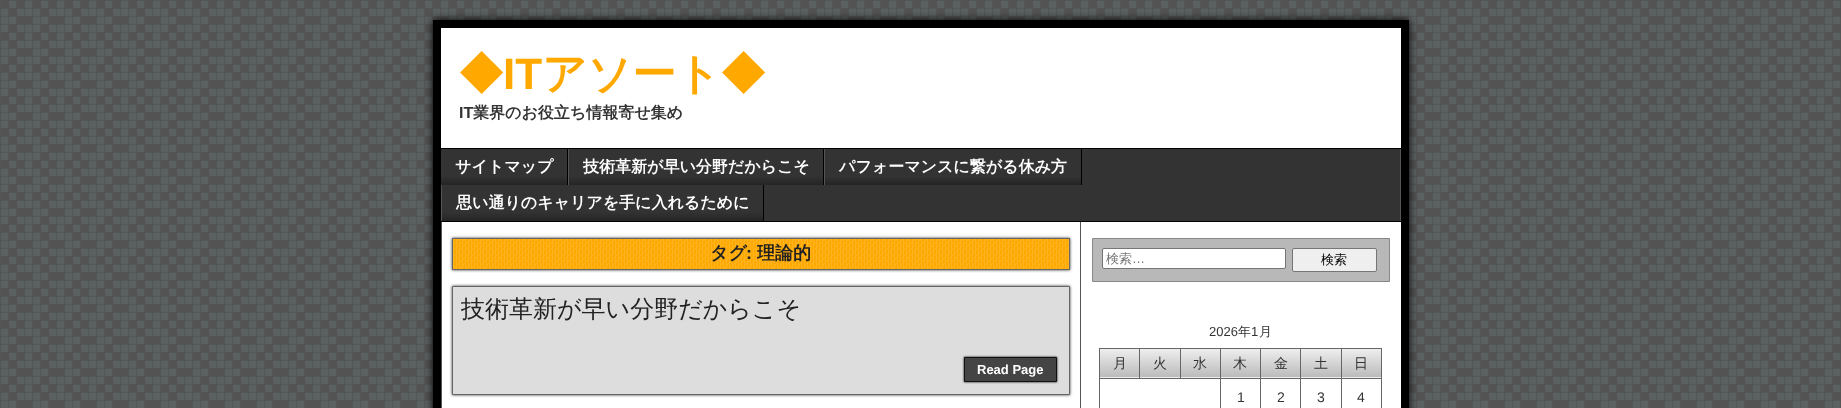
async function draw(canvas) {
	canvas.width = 1841;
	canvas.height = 408;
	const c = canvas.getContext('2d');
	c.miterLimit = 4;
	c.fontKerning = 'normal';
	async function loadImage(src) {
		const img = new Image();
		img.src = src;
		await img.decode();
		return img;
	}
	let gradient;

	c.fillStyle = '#fff';
	c.fillRect(0, 0, 1841, 408);
	c.drawImage(await loadImage('img1.png'), 0, 0, 1841, 408);
	c.fillStyle = '#000';
	c.filter = 'blur(4px)';
	c.beginPath();
	c.rect(433, 20, 976, 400);
	c.fill();
	c.filter = 'none';
	c.fillStyle = '#fff';
	c.beginPath();
	c.rect(437, 24, 968, 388);
	c.fill();
	c.strokeStyle = '#000';
	c.lineWidth = 8;
	c.stroke();
	c.font = 'bold 44px WenQuanYi Zen Hei';
	c.fillStyle = '#ffa900';
	c.fillText('◆', 459, 89);
	c.font = 'bold 44px Liberation Sans';
	c.fillText('IT', 503, 89);
	c.font = 'bold 44px WenQuanYi Zen Hei';
	c.fillText('アソート◆', 542, 89);
	c.font = 'bold 16px Liberation Sans';
	c.fillStyle = '#333';
	c.fillText('IT', 459, 118);
	c.font = 'bold 16px WenQuanYi Zen Hei';
	c.fillText('業界のお役立ち情報寄せ集め', 473, 118);
	for (const [x, y, w, h, color] of [
		[764, 149, 636, 72, '#333'],
		[441, 148, 960, 1, '#000'],
		[441, 221, 960, 1, '#000'],
		[1400, 149, 1, 72, '#555'],
		[567, 149, 1, 36, '#000'],
	]) {
		c.fillStyle = color;
		c.fillRect(x, y, w, h);
	}
	gradient = c.createLinearGradient(504, 149, 504, 185);
	gradient.addColorStop(0.75, '#333');
	gradient.addColorStop(1, '#252525');
	c.fillStyle = gradient;
	c.fillRect(441, 149, 126, 36);
	c.fillStyle = '#fff';
	c.fillText('サイトマップ', 455, 172);
	c.fillStyle = '#000';
	c.fillRect(823, 149, 1, 36);
	c.fillStyle = '#555';
	c.fillRect(568, 149, 1, 36);
	gradient = c.createLinearGradient(696, 149, 696, 185);
	gradient.addColorStop(0.75, '#333');
	gradient.addColorStop(1, '#252525');
	c.fillStyle = gradient;
	c.fillRect(569, 149, 254, 36);
	c.fillStyle = '#fff';
	c.fillText('技術革新が早い分野だからこそ', 583, 172);
	c.fillStyle = '#000';
	c.fillRect(1081, 149, 1, 36);
	c.fillStyle = '#555';
	c.fillRect(824, 149, 1, 36);
	gradient = c.createLinearGradient(953, 149, 953, 185);
	gradient.addColorStop(0.75, '#333');
	gradient.addColorStop(1, '#252525');
	c.fillStyle = gradient;
	c.fillRect(825, 178, 256, 7);
	c.fillStyle = '#fff';
	c.fillText('パフォーマンスに繋がる休み方', 839, 172);
	c.fillStyle = '#000';
	c.fillRect(763, 185, 1, 36);
	c.fillStyle = '#555';
	c.fillRect(441, 185, 1, 36);
	gradient = c.createLinearGradient(603, 185, 603, 221);
	gradient.addColorStop(0.75, '#333');
	gradient.addColorStop(1, '#252525');
	c.fillStyle = gradient;
	c.fillRect(442, 185, 321, 36);
	c.fillStyle = '#fff';
	c.fillText('思い通りのキャリアを手に入れるために', 456, 208);
	c.fillStyle = '#555';
	c.fillRect(1080, 222, 1, 186);
	c.fillRect(441, 222, 1, 186);
	c.fillStyle = '#333';
	c.filter = 'blur(1.5px)';
	c.beginPath();
	c.rect(452, 238, 618, 32);
	c.fill();
	c.filter = 'none';
	c.strokeStyle = '#666';
	c.lineWidth = 1;
	c.strokeRect(452.5, 238.5, 617, 31);
	c.fillStyle = '#ffa900';
	c.fillRect(453, 239, 616, 30);
	c.drawImage(await loadImage('img2.png'), 453, 239, 616, 30);
	c.font = 'bold 18px WenQuanYi Zen Hei';
	c.fillStyle = '#222';
	c.fillText('タグ', 710, 259);
	c.font = 'bold 18px Liberation Sans';
	c.fillText(':', 746, 259);
	c.font = 'bold 18px WenQuanYi Zen Hei';
	c.fillText('理論的', 757, 259);
	c.fillStyle = '#333';
	c.filter = 'blur(1.5px)';
	c.beginPath();
	c.rect(452, 286, 618, 109);
	c.fill();
	c.filter = 'none';
	c.fillStyle = '#ddd';
	c.beginPath();
	c.rect(452.5, 286.5, 617, 108);
	c.fill();
	c.stroke();
	c.font = '500 24px WenQuanYi Zen Hei';
	c.fillStyle = '#222';
	c.fillText('技術革新が早い分野だからこそ', 461, 317);
	c.fillStyle = '#000';
	c.filter = 'blur(1px)';
	c.beginPath();
	c.rect(964, 357, 93, 25);
	c.fill();
	c.filter = 'none';
	c.fillStyle = '#444';
	c.beginPath();
	c.rect(964.5, 357.5, 92, 24);
	c.fill();
	c.strokeStyle = '#111';
	c.stroke();
	c.font = 'bold 13px Liberation Sans';
	c.fillStyle = '#fff';
	c.fillText('Read Page', 977, 374);
	c.fillStyle = '#b8b8b8';
	c.beginPath();
	c.rect(1092.5, 238.5, 297, 43);
	c.fill();
	c.strokeStyle = '#888';
	c.stroke();
	c.fillStyle = '#fff';
	c.beginPath();
	c.roundRect(1102.5, 248.5, 183, 20, 1.5);
	c.fill();
	c.strokeStyle = '#767676';
	c.stroke();
	c.font = '500 13px WenQuanYi Zen Hei';
	c.fillStyle = '#757575';
	c.fillText('検索', 1106, 263);
	c.font = '13px Liberation Sans';
	c.fillText('…', 1132, 263);
	c.fillStyle = '#efefef';
	c.beginPath();
	c.roundRect(1292.5, 248.5, 84, 23, 1.5);
	c.fill();
	c.stroke();
	c.font = '500 13px WenQuanYi Zen Hei';
	c.fillStyle = '#000';
	c.fillText('検索', 1321, 264);
	c.font = '13px Liberation Sans';
	c.fillStyle = '#333';
	c.fillText('2026', 1209, 336);
	c.font = '500 13px WenQuanYi Zen Hei';
	c.fillText('年', 1238, 336);
	c.font = '13px Liberation Sans';
	c.fillText('1', 1251, 336);
	c.font = '500 13px WenQuanYi Zen Hei';
	c.fillText('月', 1259, 336);
	gradient = c.createLinearGradient(1120, 349, 1120, 377);
	gradient.addColorStop(0, '#eee');
	gradient.addColorStop(1, '#bbb');
	c.fillStyle = gradient;
	c.fillRect(1100, 349, 39, 28);
	gradient = c.createLinearGradient(1120, 377, 1120, 405);
	gradient.addColorStop(0, '#eee');
	gradient.addColorStop(1, '#bbb');
	c.fillStyle = gradient;
	c.fillRect(1099, 377, 41, 1);
	c.fillStyle = '#666';
	c.fillRect(1341, 348, 41, 1);
	gradient = c.createLinearGradient(1362, 377, 1362, 405);
	gradient.addColorStop(0, '#eee');
	gradient.addColorStop(1, '#bbb');
	c.fillStyle = gradient;
	c.fillRect(1341, 377, 41, 1);
	for (const [x, y, w, h, color] of [
		[1341, 378, 41, 1, '#666'],
		[1341, 378, 1, 30, '#666'],
		[1300, 378, 42, 1, '#666'],
		[1341, 348, 1, 31, '#666'],
		[1300, 348, 42, 1, '#666'],
	]) {
		c.fillStyle = color;
		c.fillRect(x, y, w, h);
	}
	gradient = c.createLinearGradient(1281, 377, 1281, 405);
	gradient.addColorStop(0, '#eee');
	gradient.addColorStop(1, '#bbb');
	c.fillStyle = gradient;
	c.fillRect(1261, 377, 40, 1);
	for (const [x, y, w, h, color] of [
		[1300, 378, 1, 30, '#666'],
		[1260, 378, 41, 1, '#666'],
		[1300, 348, 1, 31, '#666'],
		[1260, 348, 41, 1, '#666'],
	]) {
		c.fillStyle = color;
		c.fillRect(x, y, w, h);
	}
	gradient = c.createLinearGradient(1241, 377, 1241, 405);
	gradient.addColorStop(0, '#eee');
	gradient.addColorStop(1, '#bbb');
	c.fillStyle = gradient;
	c.fillRect(1220, 377, 41, 1);
	for (const [x, y, w, h, color] of [
		[1260, 378, 1, 30, '#666'],
		[1220, 378, 41, 1, '#666'],
		[1260, 348, 1, 31, '#666'],
		[1220, 348, 41, 1, '#666'],
		[1220, 378, 1, 30, '#666'],
		[1099, 378, 122, 1, '#666'],
		[1220, 348, 1, 31, '#666'],
		[1180, 348, 41, 1, '#666'],
	]) {
		c.fillStyle = color;
		c.fillRect(x, y, w, h);
	}
	gradient = c.createLinearGradient(1200, 377, 1200, 405);
	gradient.addColorStop(0, '#eee');
	gradient.addColorStop(1, '#bbb');
	c.fillStyle = gradient;
	c.fillRect(1180, 377, 40, 1);
	for (const [x, y, w, h, color] of [
		[1180, 348, 1, 31, '#666'],
		[1139, 348, 42, 1, '#666'],
		[1139, 348, 1, 31, '#666'],
		[1099, 348, 41, 1, '#666'],
		[1099, 378, 1, 30, '#666'],
		[1099, 348, 1, 31, '#666'],
	]) {
		c.fillStyle = color;
		c.fillRect(x, y, w, h);
	}
	c.font = '500 14px WenQuanYi Zen Hei';
	c.fillStyle = '#333';
	c.fillText('月', 1113, 368);
	gradient = c.createLinearGradient(1160, 349, 1160, 377);
	gradient.addColorStop(0, '#eee');
	gradient.addColorStop(1, '#bbb');
	c.fillStyle = gradient;
	c.fillRect(1140, 349, 40, 28);
	gradient = c.createLinearGradient(1160, 377, 1160, 405);
	gradient.addColorStop(0, '#eee');
	gradient.addColorStop(1, '#bbb');
	c.fillStyle = gradient;
	c.fillRect(1140, 377, 40, 1);
	c.fillStyle = '#333';
	c.fillText('火', 1153, 368);
	gradient = c.createLinearGradient(1200, 349, 1200, 377);
	gradient.addColorStop(0, '#eee');
	gradient.addColorStop(1, '#bbb');
	c.fillStyle = gradient;
	c.fillRect(1181, 349, 39, 28);
	c.fillStyle = '#333';
	c.fillText('水', 1193, 368);
	gradient = c.createLinearGradient(1241, 349, 1241, 377);
	gradient.addColorStop(0, '#eee');
	gradient.addColorStop(1, '#bbb');
	c.fillStyle = gradient;
	c.fillRect(1221, 349, 39, 28);
	c.fillStyle = '#333';
	c.fillText('木', 1233, 368);
	gradient = c.createLinearGradient(1281, 349, 1281, 377);
	gradient.addColorStop(0, '#eee');
	gradient.addColorStop(1, '#bbb');
	c.fillStyle = gradient;
	c.fillRect(1261, 349, 39, 28);
	c.fillStyle = '#333';
	c.fillText('金', 1274, 368);
	gradient = c.createLinearGradient(1321, 349, 1321, 377);
	gradient.addColorStop(0, '#eee');
	gradient.addColorStop(1, '#bbb');
	c.fillStyle = gradient;
	c.fillRect(1301, 349, 40, 28);
	gradient = c.createLinearGradient(1321, 377, 1321, 405);
	gradient.addColorStop(0, '#eee');
	gradient.addColorStop(1, '#bbb');
	c.fillStyle = gradient;
	c.fillRect(1301, 377, 40, 1);
	c.fillStyle = '#333';
	c.fillText('土', 1314, 368);
	gradient = c.createLinearGradient(1362, 349, 1362, 377);
	gradient.addColorStop(0, '#eee');
	gradient.addColorStop(1, '#bbb');
	c.fillStyle = gradient;
	c.fillRect(1342, 349, 39, 28);
	c.fillStyle = '#666';
	c.fillRect(1381, 378, 1, 30);
	c.fillRect(1381, 348, 1, 31);
	c.fillStyle = '#333';
	c.fillText('日', 1354, 368);
	c.font = '14px Liberation Sans';
	for (const [text, x, y] of [
		['1', 1237, 402],
		['2', 1277, 402],
		['3', 1317, 402],
		['4', 1357, 402],
	]) {
		c.fillText(text, x, y);
	}
}

draw(document.querySelector('canvas'));
